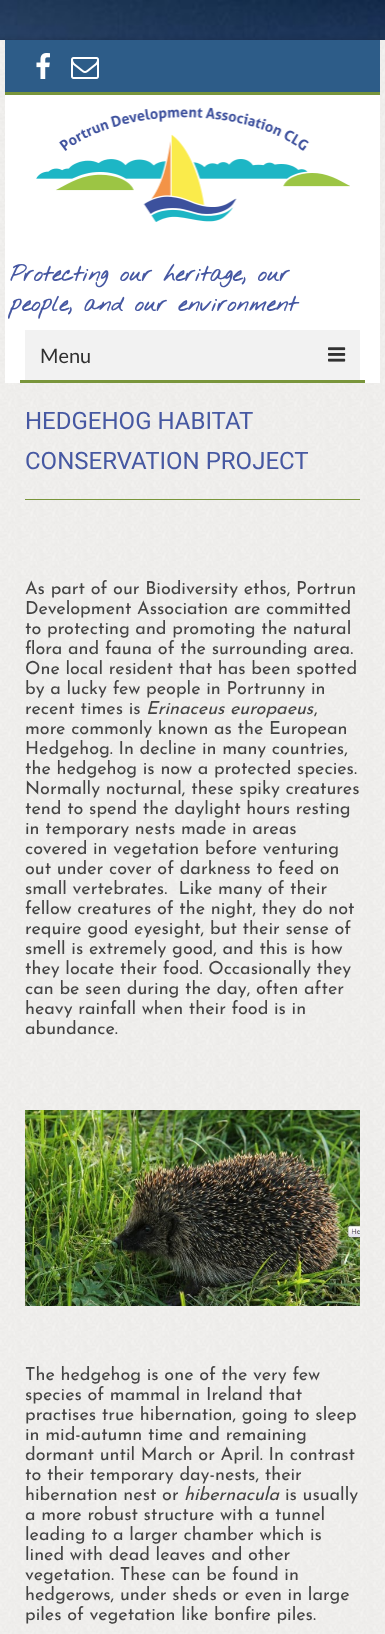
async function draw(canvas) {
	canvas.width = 385;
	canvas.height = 1634;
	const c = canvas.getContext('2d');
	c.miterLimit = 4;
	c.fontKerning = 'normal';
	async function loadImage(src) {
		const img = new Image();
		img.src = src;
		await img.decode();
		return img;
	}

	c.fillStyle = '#fff';
	c.fillRect(0, 0, 385, 1634);
	c.drawImage(await loadImage('img1.png'), 0, 0, 385, 40);
	c.fillStyle = '#00000029';
	c.filter = 'blur(2.5px)';
	c.beginPath();
	c.rect(-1, 39, 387, 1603);
	c.fill();
	c.filter = 'none';
	c.drawImage(await loadImage('img2.png'), 0, 40, 385, 1594);
	for (const [x, y, w, h, color] of [
		[5, 95, 375, 288, '#fff'],
		[5, 40, 375, 52, '#2d5c88'],
		[5, 92, 375, 3, '#79953b'],
	]) {
		c.fillStyle = color;
		c.fillRect(x, y, w, h);
	}
	c.drawImage(await loadImage('img3.png'), 36, 53, 14, 26);
	c.drawImage(await loadImage('img4.png'), 71, 57, 28, 22);
	c.drawImage(await loadImage('img5.png'), 36, 107, 314, 115);
	c.font = 'bold 22px Nothing You Could Do';
	c.fillStyle = '#4658a2';
	c.fillText('Protecting our heritage, our', 10, 281);
	c.fillText('people, and our environment', 10, 311);
	c.fillStyle = '#f2f2f2';
	c.fillRect(25, 330, 335, 50);
	c.font = '20px Lato';
	c.fillStyle = '#303030';
	c.fillText('Menu', 40, 363);
	c.drawImage(await loadImage('img6.png'), 328, 347, 18, 15);
	c.fillStyle = '#79953b';
	c.fillRect(20, 380, 345, 3);
	c.fillRect(25, 499, 335, 1);
	c.font = '24px Roboto';
	c.fillStyle = '#4658a2';
	c.fillText('HEDGEHOG HABITAT', 25, 429);
	c.fillText('CONSERVATION PROJECT', 25, 469);
	c.font = '100 18px Josefin Sans';
	c.fillStyle = '#444';
	for (const [text, x, y] of [
		['As part of our Biodiversity ethos, Portrun', 25, 594],
		['Development Association are committed', 25, 614],
		['to protecting and promoting the natural', 25, 634],
		['flora and fauna of the surrounding area.', 25, 654],
		['One local resident that has been spotted', 25, 674],
		['by a lucky few people in Portrunny in', 25, 694],
		['recent times is', 25, 714],
	]) {
		c.fillText(text, x, y);
	}
	c.font = 'italic 100 18px Josefin Sans';
	c.fillText('Erinaceus europaeus', 146, 714);
	c.font = '100 18px Josefin Sans';
	for (const [text, x, y] of [
		[',', 314, 714],
		['more commonly known as the European', 25, 734],
		['Hedgehog. In decline in many countries,', 25, 754],
		['the hedgehog is now a protected species.', 25, 774],
		['Normally nocturnal, these spiky creatures', 25, 794],
		['tend to spend the daylight hours resting', 25, 814],
		['in temporary nests made in areas', 25, 834],
		['covered in vegetation before venturing', 25, 854],
		['out under cover of darkness to feed on', 25, 874],
		['small vertebrates.  Like many of their', 25, 894],
		['fellow creatures of the night, they do not', 25, 914],
		['require good eyesight, but their sense of', 25, 934],
		['smell is extremely good, and this is how', 25, 954],
		['they locate their food. Occasionally they', 25, 974],
		['can be seen during the day, often after', 25, 994],
		['heavy rainfall when their food is in', 25, 1014],
		['abundance.', 25, 1034],
	]) {
		c.fillText(text, x, y);
	}
	c.drawImage(await loadImage('img7.png'), 25, 1110, 335, 196);
	for (const [text, x, y] of [
		['The hedgehog is one of the very few', 25, 1380],
		['species of mammal in Ireland that', 25, 1400],
		['practises true hibernation, going to sleep', 25, 1420],
		['in mid-autumn time and remaining', 25, 1440],
		['dormant until March or April. In contrast', 25, 1460],
		['to their temporary day-nests, their', 25, 1480],
		['hibernation nest or', 25, 1500],
	]) {
		c.fillText(text, x, y);
	}
	c.font = 'italic 100 18px Josefin Sans';
	c.fillText('hibernacula', 184, 1500);
	c.font = '100 18px Josefin Sans';
	for (const [text, x, y] of [
		['is usually', 285, 1500],
		['a more robust structure with a tunnel', 25, 1520],
		['leading to a larger chamber which is', 25, 1540],
		['lined with dead leaves and other', 25, 1560],
		['vegetation. These can be found in', 25, 1580],
		['hedgerows, under sheds or even in large', 25, 1600],
		['piles of vegetation like bonfire piles.', 25, 1620],
	]) {
		c.fillText(text, x, y);
	}
}

draw(document.querySelector('canvas'));
